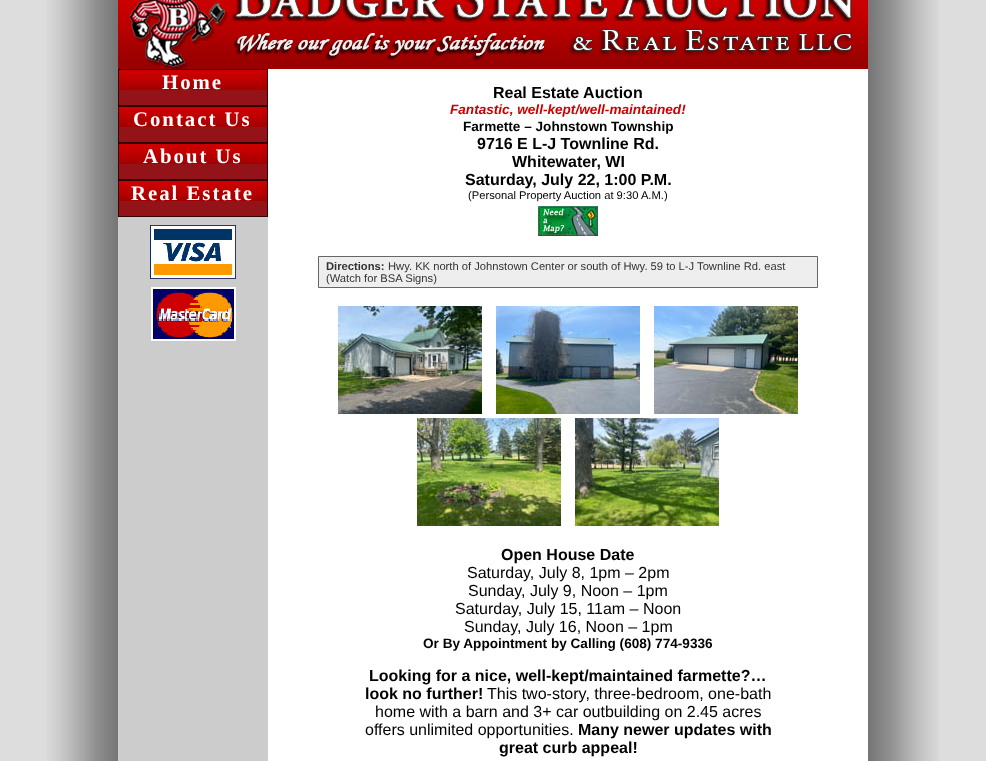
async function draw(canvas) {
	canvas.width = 986;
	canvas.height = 761;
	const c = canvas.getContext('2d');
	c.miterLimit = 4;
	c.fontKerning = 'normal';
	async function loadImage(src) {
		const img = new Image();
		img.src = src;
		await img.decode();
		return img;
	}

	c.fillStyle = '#ddd';
	c.fillRect(0, 0, 986, 761);
	c.drawImage(await loadImage('img1.png'), 47, 0, 892, 761);
	c.drawImage(await loadImage('img2.png'), 118, 0, 750, 69);
	c.fillStyle = '#ccc';
	c.fillRect(118, 217, 150, 544);
	c.fillStyle = '#931319';
	c.fillRect(119, 90, 148, 15);
	c.drawImage(await loadImage('img3.png'), 119, 70, 148, 20);
	c.strokeStyle = '#300';
	c.strokeRect(118.5, 69.5, 149, 36);
	c.letterSpacing = '2px';
	c.font = 'bold 20.75px Liberation Serif';
	c.fillStyle = '#fff';
	c.fillText('Home', 162, 89);
	c.fillStyle = '#931319';
	c.fillRect(119, 127, 148, 15);
	c.drawImage(await loadImage('img3.png'), 119, 107, 148, 20);
	c.strokeRect(118.5, 106.5, 149, 36);
	c.fillStyle = '#fff';
	c.fillText('Contact Us', 133, 126);
	c.fillStyle = '#931319';
	c.fillRect(119, 164, 148, 15);
	c.drawImage(await loadImage('img3.png'), 119, 144, 148, 20);
	c.strokeRect(118.5, 143.5, 149, 36);
	c.fillStyle = '#fff';
	c.fillText('About Us', 143, 163);
	c.fillStyle = '#931319';
	c.fillRect(119, 201, 148, 15);
	c.drawImage(await loadImage('img3.png'), 119, 181, 148, 20);
	c.strokeRect(118.5, 180.5, 149, 36);
	c.fillStyle = '#fff';
	c.fillText('Real Estate', 131, 200);
	c.drawImage(await loadImage('img4.png'), 150, 225, 86, 54);
	c.drawImage(await loadImage('img5.png'), 151, 287, 85, 54);
	c.fillRect(268, 69, 600, 692);
	c.letterSpacing = '0px';
	c.font = 'bold 16px Liberation Sans';
	c.fillStyle = '#000';
	c.fillText('Real Estate Auction', 493, 98);
	c.font = 'italic bold 13.6px Liberation Sans';
	c.fillStyle = '#c00';
	c.fillText('Fantastic, well-kept/well-maintained!', 450, 114);
	c.font = 'bold 13.6px Liberation Sans';
	c.fillStyle = '#000';
	c.fillText('Farmette – Johnstown Township', 463, 131);
	c.font = 'bold 16px Liberation Sans';
	for (const [text, x, y] of [
		['9716 E L-J Townline Rd.', 477, 149],
		['Whitewater, WI', 512, 167],
		['Saturday, July 22, 1:00 P.M.', 465, 185],
	]) {
		c.fillText(text, x, y);
	}
	c.font = '11.2px Liberation Sans';
	c.fillText('(Personal Property Auction at 9:30 A.M.)', 468, 199);
	c.drawImage(await loadImage('img6.png'), 538, 206, 60, 30);
	c.fillStyle = '#eee';
	c.beginPath();
	c.rect(318.5, 256.5, 499, 31);
	c.fill();
	c.strokeStyle = '#666';
	c.stroke();
	c.font = 'bold 11.2px Liberation Sans';
	c.fillStyle = '#333';
	c.fillText('Directions:', 326, 270);
	c.font = '11.2px Liberation Sans';
	c.fillText('Hwy. KK north of Johnstown Center or south of Hwy. 59 to L-J Townline Rd. east', 388, 270);
	c.fillText('(Watch for BSA Signs)', 326, 282);
	c.drawImage(await loadImage('img7.png'), 338, 306, 144, 108);
	c.drawImage(await loadImage('img8.png'), 496, 306, 144, 108);
	c.drawImage(await loadImage('img9.png'), 654, 306, 144, 108);
	c.drawImage(await loadImage('img10.png'), 417, 418, 144, 108);
	c.drawImage(await loadImage('img11.png'), 575, 418, 144, 108);
	c.font = 'bold 16px Liberation Sans';
	c.fillStyle = '#000';
	c.fillText('Open House Date', 501, 560);
	c.font = '16px Liberation Sans';
	for (const [text, x, y] of [
		['Saturday, July 8, 1pm – 2pm', 467, 578],
		['Sunday, July 9, Noon – 1pm', 468, 596],
		['Saturday, July 15, 11am – Noon', 455, 614],
		['Sunday, July 16, Noon – 1pm', 464, 632],
	]) {
		c.fillText(text, x, y);
	}
	c.font = 'bold 13.6px Liberation Sans';
	c.fillText('Or By Appointment by Calling (608) 774-9336', 423, 648);
	c.font = 'bold 16px Liberation Sans';
	c.fillText('Looking for a nice, well-kept/maintained farmette?…', 369, 681);
	c.fillText('look no further!', 365, 699);
	c.font = '16px Liberation Sans';
	for (const [text, x, y] of [
		['This two-story, three-bedroom, one-bath', 487, 699],
		['home with a barn and 3+ car outbuilding on 2.45 acres', 375, 717],
		['offers unlimited opportunities.', 365, 735],
	]) {
		c.fillText(text, x, y);
	}
	c.font = 'bold 16px Liberation Sans';
	c.fillText('Many newer updates with', 578, 735);
	c.fillText('great curb appeal!', 499, 753);
}

draw(document.querySelector('canvas'));
